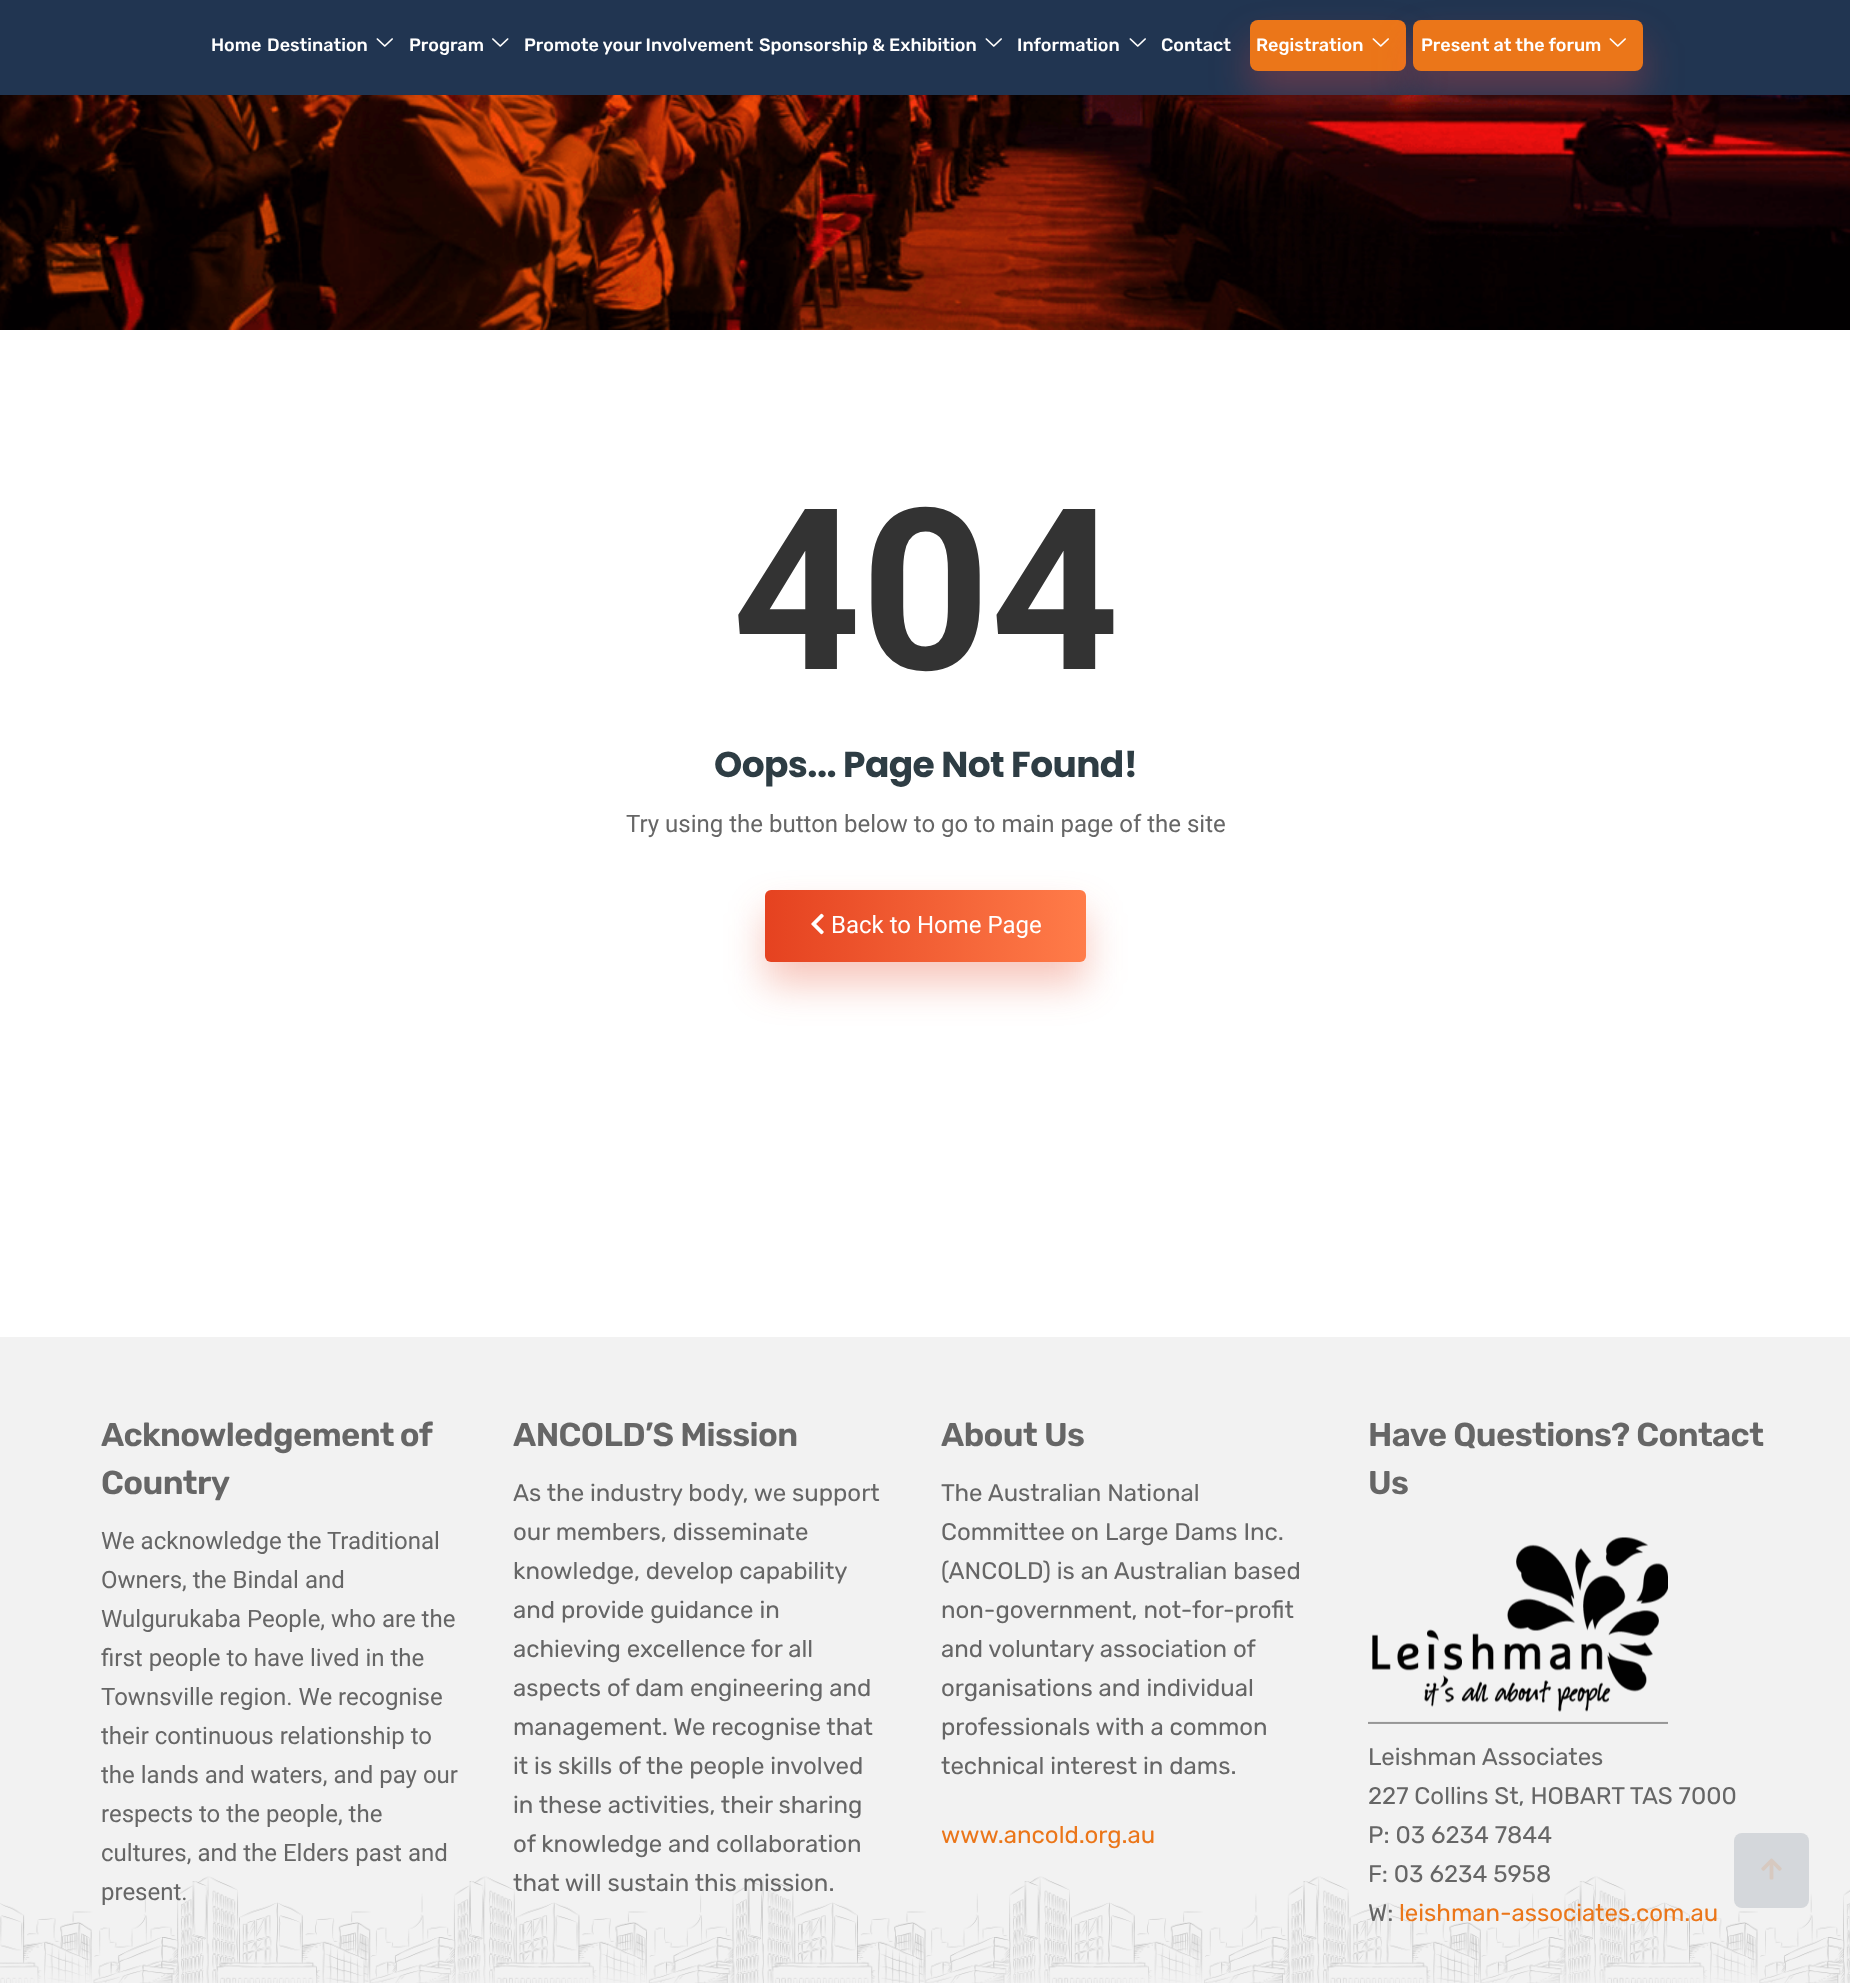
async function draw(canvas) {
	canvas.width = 1850;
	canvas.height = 1983;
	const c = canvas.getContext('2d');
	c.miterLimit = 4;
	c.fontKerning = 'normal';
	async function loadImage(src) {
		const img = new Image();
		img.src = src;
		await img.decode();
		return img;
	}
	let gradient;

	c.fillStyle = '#fff';
	c.fillRect(0, 0, 1850, 1983);
	c.fillStyle = '#213551';
	c.fillRect(0, 0, 1850, 95);
	c.font = '500 18px Rubik';
	c.fillStyle = '#fff';
	c.fillText('Home', 211, 51);
	c.fillText('Destination', 267, 51);
	c.drawImage(await loadImage('img1.png'), 376, 38, 17, 9);
	c.fillText('Program', 409, 51);
	c.drawImage(await loadImage('img2.png'), 492, 38, 17, 9);
	c.fillText('Promote your Involvement', 524, 51);
	c.fillText('Sponsorship & Exhibition', 759, 51);
	c.drawImage(await loadImage('img1.png'), 985, 38, 17, 9);
	c.fillText('Information', 1017, 51);
	c.drawImage(await loadImage('img1.png'), 1129, 38, 17, 9);
	c.fillText('Contact', 1161, 51);
	c.drawImage(await loadImage('img4.png'), 0, 95, 1850, 235);
	c.fillStyle = '#f947434d';
	c.filter = 'blur(19px)';
	c.beginPath();
	c.roundRect(1250, 42, 156, 51, 8);
	c.fill();
	c.filter = 'none';
	c.fillStyle = '#eb7619';
	c.beginPath();
	c.roundRect(1250, 20, 156, 51, 8);
	c.fill();
	c.fillStyle = '#fff';
	c.fillText('Registration', 1256, 51);
	c.drawImage(await loadImage('img3.png'), 1372, 38, 17, 9);
	c.fillStyle = '#f947434d';
	c.filter = 'blur(19px)';
	c.beginPath();
	c.roundRect(1413, 42, 230, 51, 8);
	c.fill();
	c.filter = 'none';
	c.fillStyle = '#eb7619';
	c.beginPath();
	c.roundRect(1413, 20, 230, 51, 8);
	c.fill();
	c.fillStyle = '#fff';
	c.fillText('Present at the forum', 1421, 51);
	c.drawImage(await loadImage('img3.png'), 1609, 38, 17, 9);
	c.font = 'bold 225px Roboto';
	c.fillStyle = '#333';
	c.fillText('404', 732, 669);
	c.letterSpacing = '-0.6px';
	c.font = 'bold 36px Poppins';
	c.fillStyle = '#2e3d44';
	c.fillText('Oops... Page Not Found!', 714, 777);
	c.letterSpacing = '0px';
	c.font = '24px Roboto';
	c.fillStyle = '#666';
	c.fillText('Try using the button below to go to main page of the site', 626, 832);
	c.fillStyle = '#e542204d';
	c.filter = 'blur(19px)';
	c.beginPath();
	c.roundRect(765, 912, 321, 72, 6);
	c.fill();
	c.filter = 'none';
	gradient = c.createLinearGradient(765, 926, 1086, 926);
	gradient.addColorStop(0, '#e54220');
	gradient.addColorStop(1, '#ff7c49');
	c.fillStyle = gradient;
	c.beginPath();
	c.roundRect(765, 890, 321, 72, 6);
	c.fill();
	c.drawImage(await loadImage('img5.png'), 811, 913, 13, 22);
	c.fillStyle = '#fff';
	c.fillText('Back to Home Page', 831, 933);
	c.fillStyle = '#f2f2f2';
	c.fillRect(0, 1337, 1850, 646);
	c.letterSpacing = '-0.6px';
	c.wordSpacing = '-1px';
	c.font = '600 33px Rubik';
	c.fillStyle = '#666';
	c.fillText('Acknowledgement of', 101, 1446);
	c.wordSpacing = '0px';
	c.fillText('Country', 101, 1494);
	c.letterSpacing = '0px';
	c.font = '24px Roboto';
	for (const [text, x, y] of [
		['We acknowledge the Traditional', 101, 1549],
		['Owners, the Bindal and', 101, 1588],
		['Wulgurukaba People, who are the', 101, 1627],
		['first people to have lived in the', 101, 1666],
		['Townsville region. We recognise', 101, 1705],
		['their continuous relationship to', 101, 1744],
		['the lands and waters, and pay our', 101, 1783],
		['respects to the people, the', 101, 1822],
		['cultures, and the Elders past and', 101, 1861],
	]) {
		c.fillText(text, x, y);
	}
	c.drawImage(await loadImage('img7.png'), 0, 1876, 1850, 107);
	c.fillText('present.', 101, 1900);
	c.letterSpacing = '-0.6px';
	c.font = '600 33px Rubik';
	c.fillText('ANCOLD’S Mission', 513, 1446);
	c.letterSpacing = '0px';
	c.font = '24px Rubik';
	for (const [text, x, y] of [
		['As the industry body, we support', 513, 1501],
		['our members, disseminate', 513, 1540],
		['knowledge, develop capability', 513, 1579],
		['and provide guidance in', 513, 1618],
		['achieving excellence for all', 513, 1657],
		['aspects of dam engineering and', 513, 1696],
		['management. We recognise that', 513, 1735],
		['it is skills of the people involved', 513, 1774],
		['in these activities, their sharing', 513, 1813],
		['of knowledge and collaboration', 513, 1852],
		['that will sustain this mission.', 513, 1891],
	]) {
		c.fillText(text, x, y);
	}
	c.letterSpacing = '-0.6px';
	c.font = '600 33px Rubik';
	c.fillText('About Us', 941, 1446);
	c.letterSpacing = '0px';
	c.font = '24px Rubik';
	for (const [text, x, y] of [
		['The Australian National', 941, 1501],
		['Committee on Large Dams Inc.', 941, 1540],
		['(ANCOLD) is an Australian based', 941, 1579],
		['non-government, not-for-profit', 941, 1618],
		['and voluntary association of', 941, 1657],
		['organisations and individual', 941, 1696],
		['professionals with a common', 941, 1735],
		['technical interest in dams.', 941, 1774],
	]) {
		c.fillText(text, x, y);
	}
	c.fillStyle = '#eb7619';
	c.fillText('www.ancold.org.au', 941, 1843);
	c.letterSpacing = '-0.6px';
	c.font = '600 33px Rubik';
	c.fillStyle = '#666';
	c.fillText('Have Questions? Contact', 1368, 1446);
	c.fillText('Us', 1368, 1494);
	c.drawImage(await loadImage('img6.png'), 1368, 1537, 300, 187);
	c.letterSpacing = '0px';
	c.font = '24px Rubik';
	for (const [text, x, y] of [
		['Leishman Associates', 1368, 1765],
		['227 Collins St, HOBART TAS 7000', 1368, 1804],
		['P: 03 6234 7844', 1368, 1843],
		['F: 03 6234 5958', 1368, 1882],
		['W:', 1368, 1921],
	]) {
		c.fillText(text, x, y);
	}
	c.fillStyle = '#eb7619';
	c.fillText('leishman-associates.com.au', 1399, 1921);
	c.fillStyle = '#d4d7db';
	c.beginPath();
	c.roundRect(1734, 1833, 75, 75, 8);
	c.fill();
	c.drawImage(await loadImage('img8.png'), 1761, 1858, 21, 22);
}

draw(document.querySelector('canvas'));
